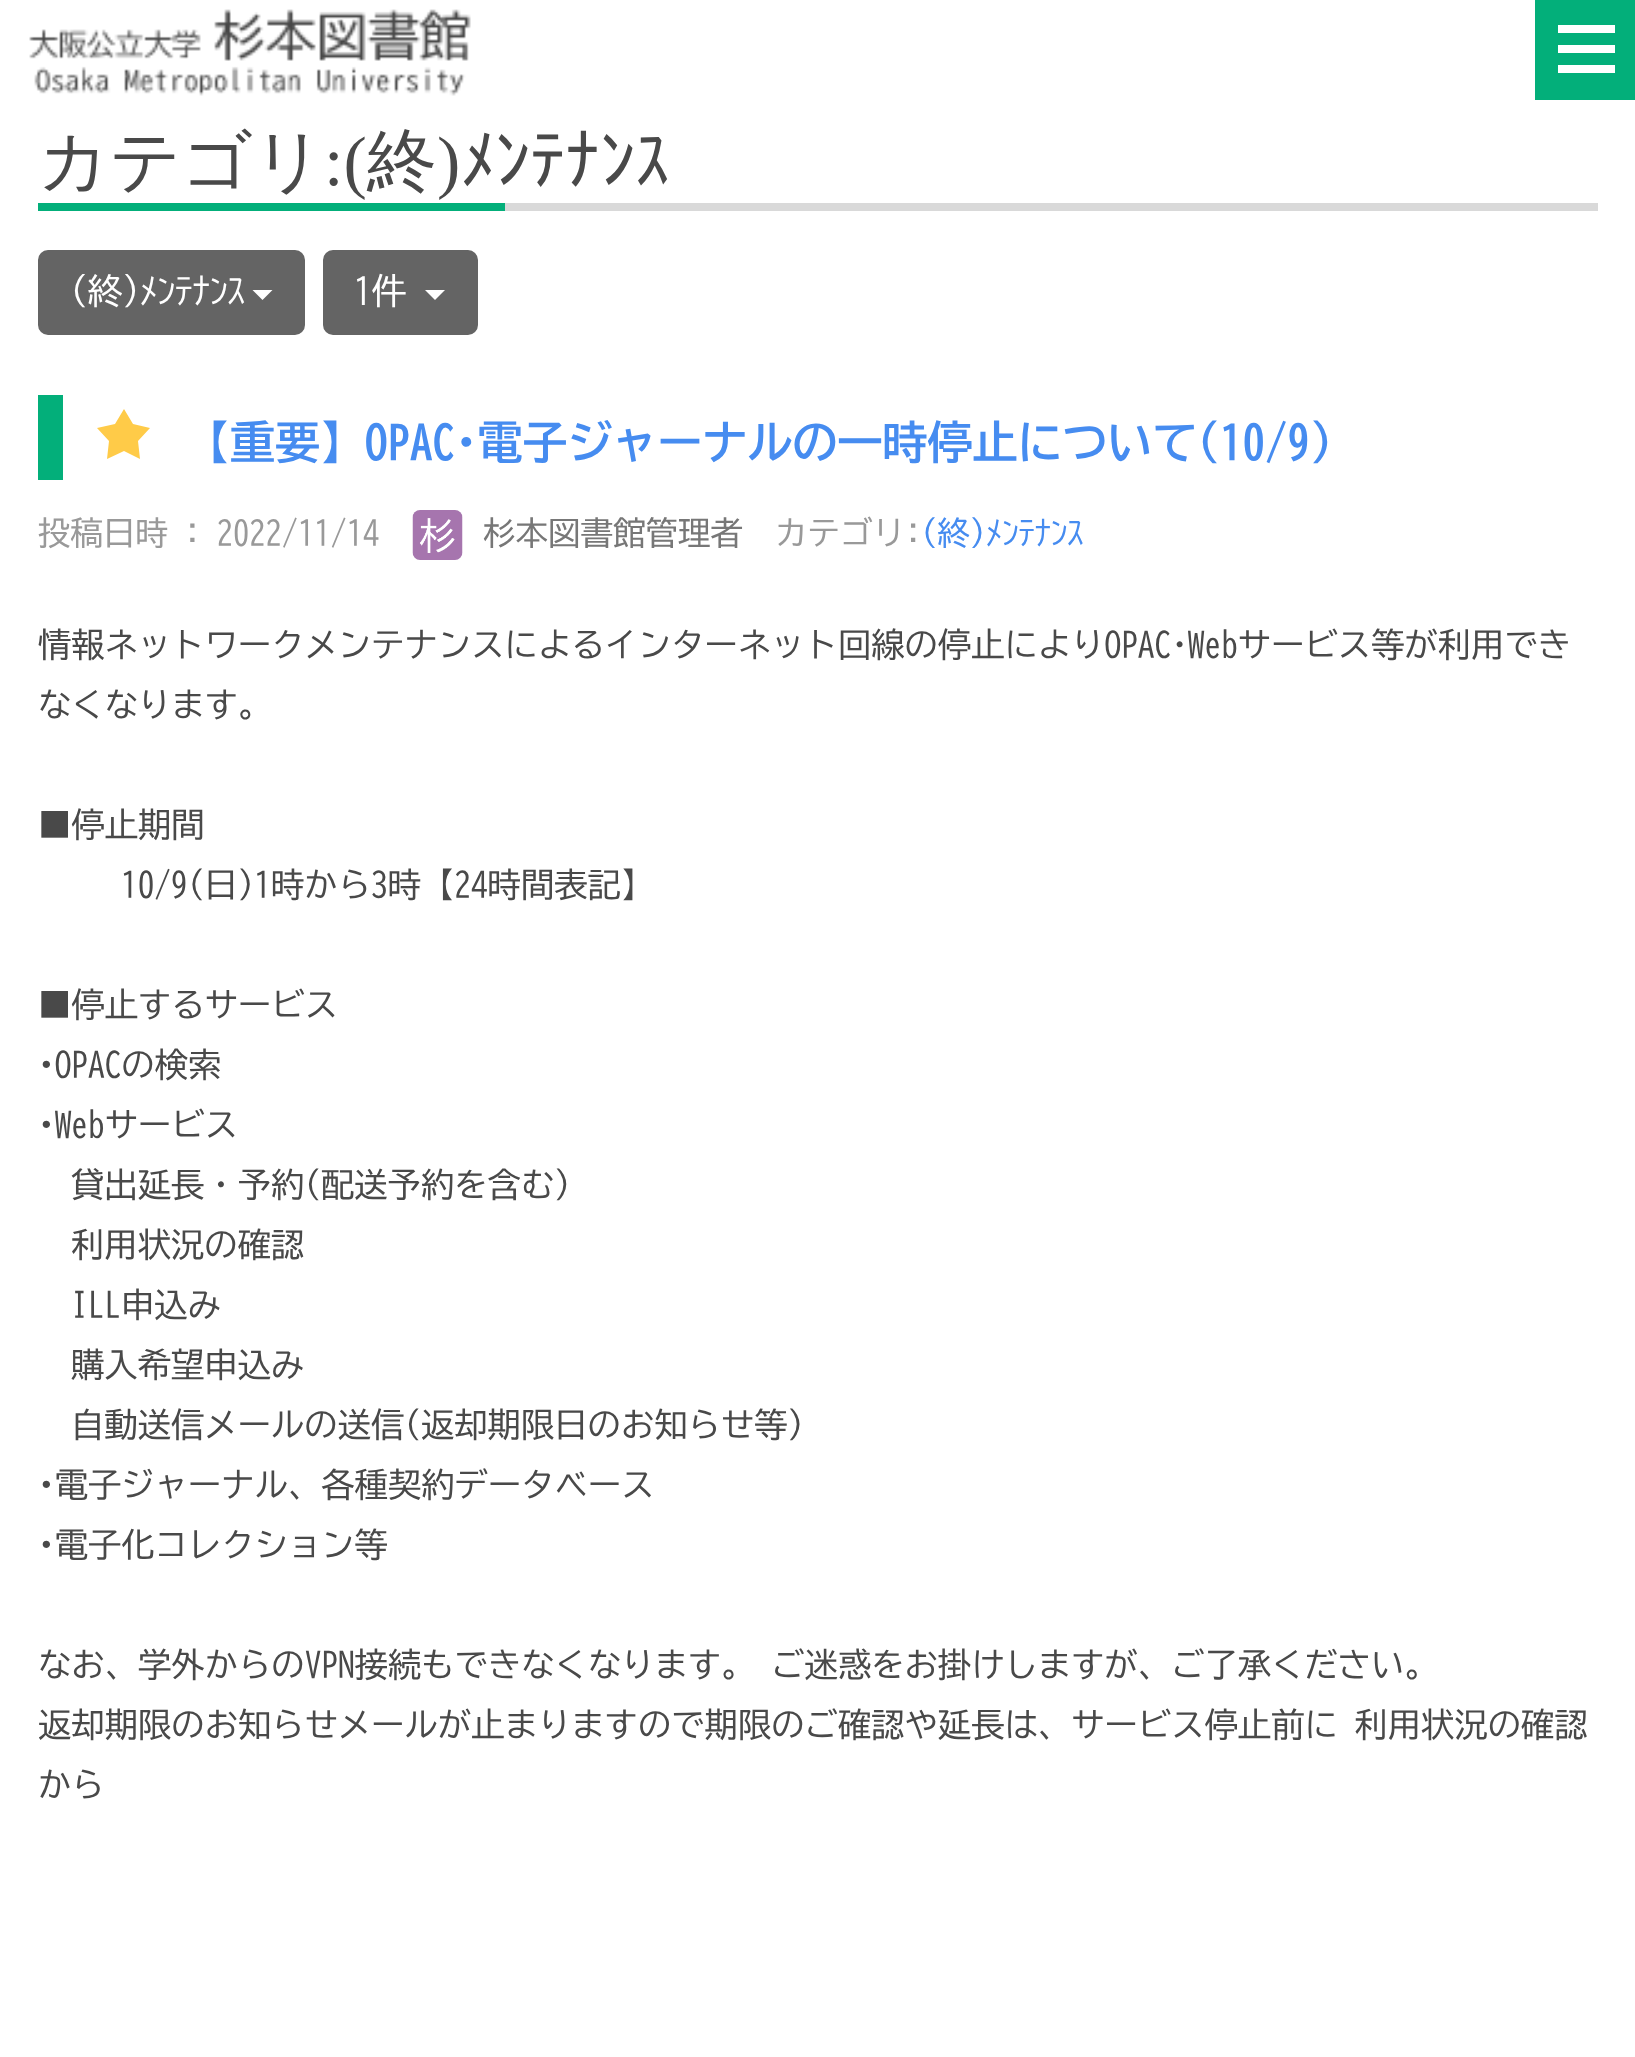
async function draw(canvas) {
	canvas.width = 1635;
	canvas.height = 2057;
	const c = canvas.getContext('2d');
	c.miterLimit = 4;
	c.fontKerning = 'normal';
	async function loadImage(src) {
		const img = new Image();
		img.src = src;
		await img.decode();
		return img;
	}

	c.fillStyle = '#fff';
	c.fillRect(0, 0, 1635, 2057);
	c.drawImage(await loadImage('img1.png'), 29, 9, 442, 87);
	for (const [x, y, w, h, color] of [
		[1535, 0, 100, 100, '#03af7a'],
		[1558, 25, 57, 8, '#fff'],
		[1558, 45, 57, 8, '#fff'],
		[1558, 65, 57, 8, '#fff'],
		[505, 203, 1093, 8, '#d9d9d9'],
	]) {
		c.fillStyle = color;
		c.fillRect(x, y, w, h);
	}
	c.font = '500 70px WenQuanYi Zen Hei';
	c.fillStyle = '#494949';
	c.fillText('カテゴリ', 38, 185);
	c.font = '70px Liberation Serif';
	c.fillText(':(', 324, 185);
	c.font = '500 70px WenQuanYi Zen Hei';
	c.fillText('終', 367, 185);
	c.font = '70px Liberation Serif';
	c.fillText(')', 437, 185);
	c.font = '70px IPAPGothic';
	c.fillText('ﾒﾝﾃﾅﾝｽ', 460, 185);
	c.fillStyle = '#03af7a';
	c.fillRect(38, 203, 467, 8);
	c.fillStyle = '#646464';
	c.beginPath();
	c.roundRect(39.5, 251.5, 264, 82, 8.5);
	c.fill();
	c.strokeStyle = '#646464';
	c.lineWidth = 3;
	c.stroke();
	c.font = '35px BIZ UDGothic';
	c.fillStyle = '#fff';
	c.fillText('(終)ﾒﾝﾃﾅﾝｽ', 70, 304);
	c.beginPath();
	c.moveTo(252.5, 290);
	c.lineTo(272.5, 290);
	c.lineTo(262.5, 300);
	c.closePath();
	c.fill();
	c.fillStyle = '#646464';
	c.beginPath();
	c.roundRect(324.5, 251.5, 152, 82, 8.5);
	c.fill();
	c.stroke();
	c.fillStyle = '#fff';
	c.fillText('1件', 354, 304);
	c.beginPath();
	c.moveTo(425, 290);
	c.lineTo(445, 290);
	c.lineTo(435, 300);
	c.closePath();
	c.fill();
	c.fillStyle = '#03af7a';
	c.fillRect(38, 395, 25, 85);
	c.fillStyle = '#ffcb48';
	c.beginPath();
	c.moveTo(124, 409);
	c.lineTo(133, 424);
	c.lineTo(150, 428);
	c.lineTo(138, 441);
	c.lineTo(140, 459);
	c.lineTo(124, 451);
	c.lineTo(107, 459);
	c.lineTo(109, 441);
	c.lineTo(97, 428);
	c.lineTo(115, 424);
	c.closePath();
	c.fill();
	c.font = 'bold 45px BIZ UDGothic';
	c.fillStyle = '#468cf0';
	c.fillText('【重要】OPAC･電子ジャーナルの一時停止について(10/9)', 185, 459);
	c.font = '32.5px BIZ UDGothic';
	c.fillStyle = '#999';
	c.fillText('投稿日時 : 2022/11/14', 38, 545);
	c.drawImage(await loadImage('img2.png'), 412, 510, 51, 50);
	c.fillStyle = '#777';
	c.fillText('杉本図書館管理者', 483, 545);
	c.fillStyle = '#999';
	c.fillText('カテゴリ:', 775, 545);
	c.fillStyle = '#468cf0';
	c.fillText('(終)ﾒﾝﾃﾅﾝｽ', 921, 545);
	c.font = '33.35px BIZ UDGothic';
	c.fillStyle = '#494949';
	for (const [text, x, y] of [
		['情報ネットワークメンテナンスによるインターネット回線の停止によりOPAC･Webサービス等が利用でき', 38, 657],
		['なくなります。', 38, 717],
		['■停止期間', 38, 837],
		['10/9(日)1時から3時【24時間表記】', 121, 897],
		['■停止するサービス', 38, 1017],
		['•OPACの検索', 38, 1077],
		['•Webサービス', 38, 1137],
		['貸出延長・予約(配送予約を含む)', 71, 1197],
		['利用状況の確認', 71, 1257],
		['ILL申込み', 71, 1317],
		['購入希望申込み', 71, 1377],
		['自動送信メールの送信(返却期限日のお知らせ等)', 71, 1437],
		['•電子ジャーナル、各種契約データベース', 38, 1497],
		['•電子化コレクション等', 38, 1557],
		['なお、学外からのVPN接続もできなくなります。 ご迷惑をお掛けしますが、ご了承ください。', 38, 1677],
		['返却期限のお知らせメールが止まりますので期限のご確認や延長は、サービス停止前に 利用状況の確認', 38, 1737],
		['から', 38, 1797],
	]) {
		c.fillText(text, x, y);
	}
}

draw(document.querySelector('canvas'));
